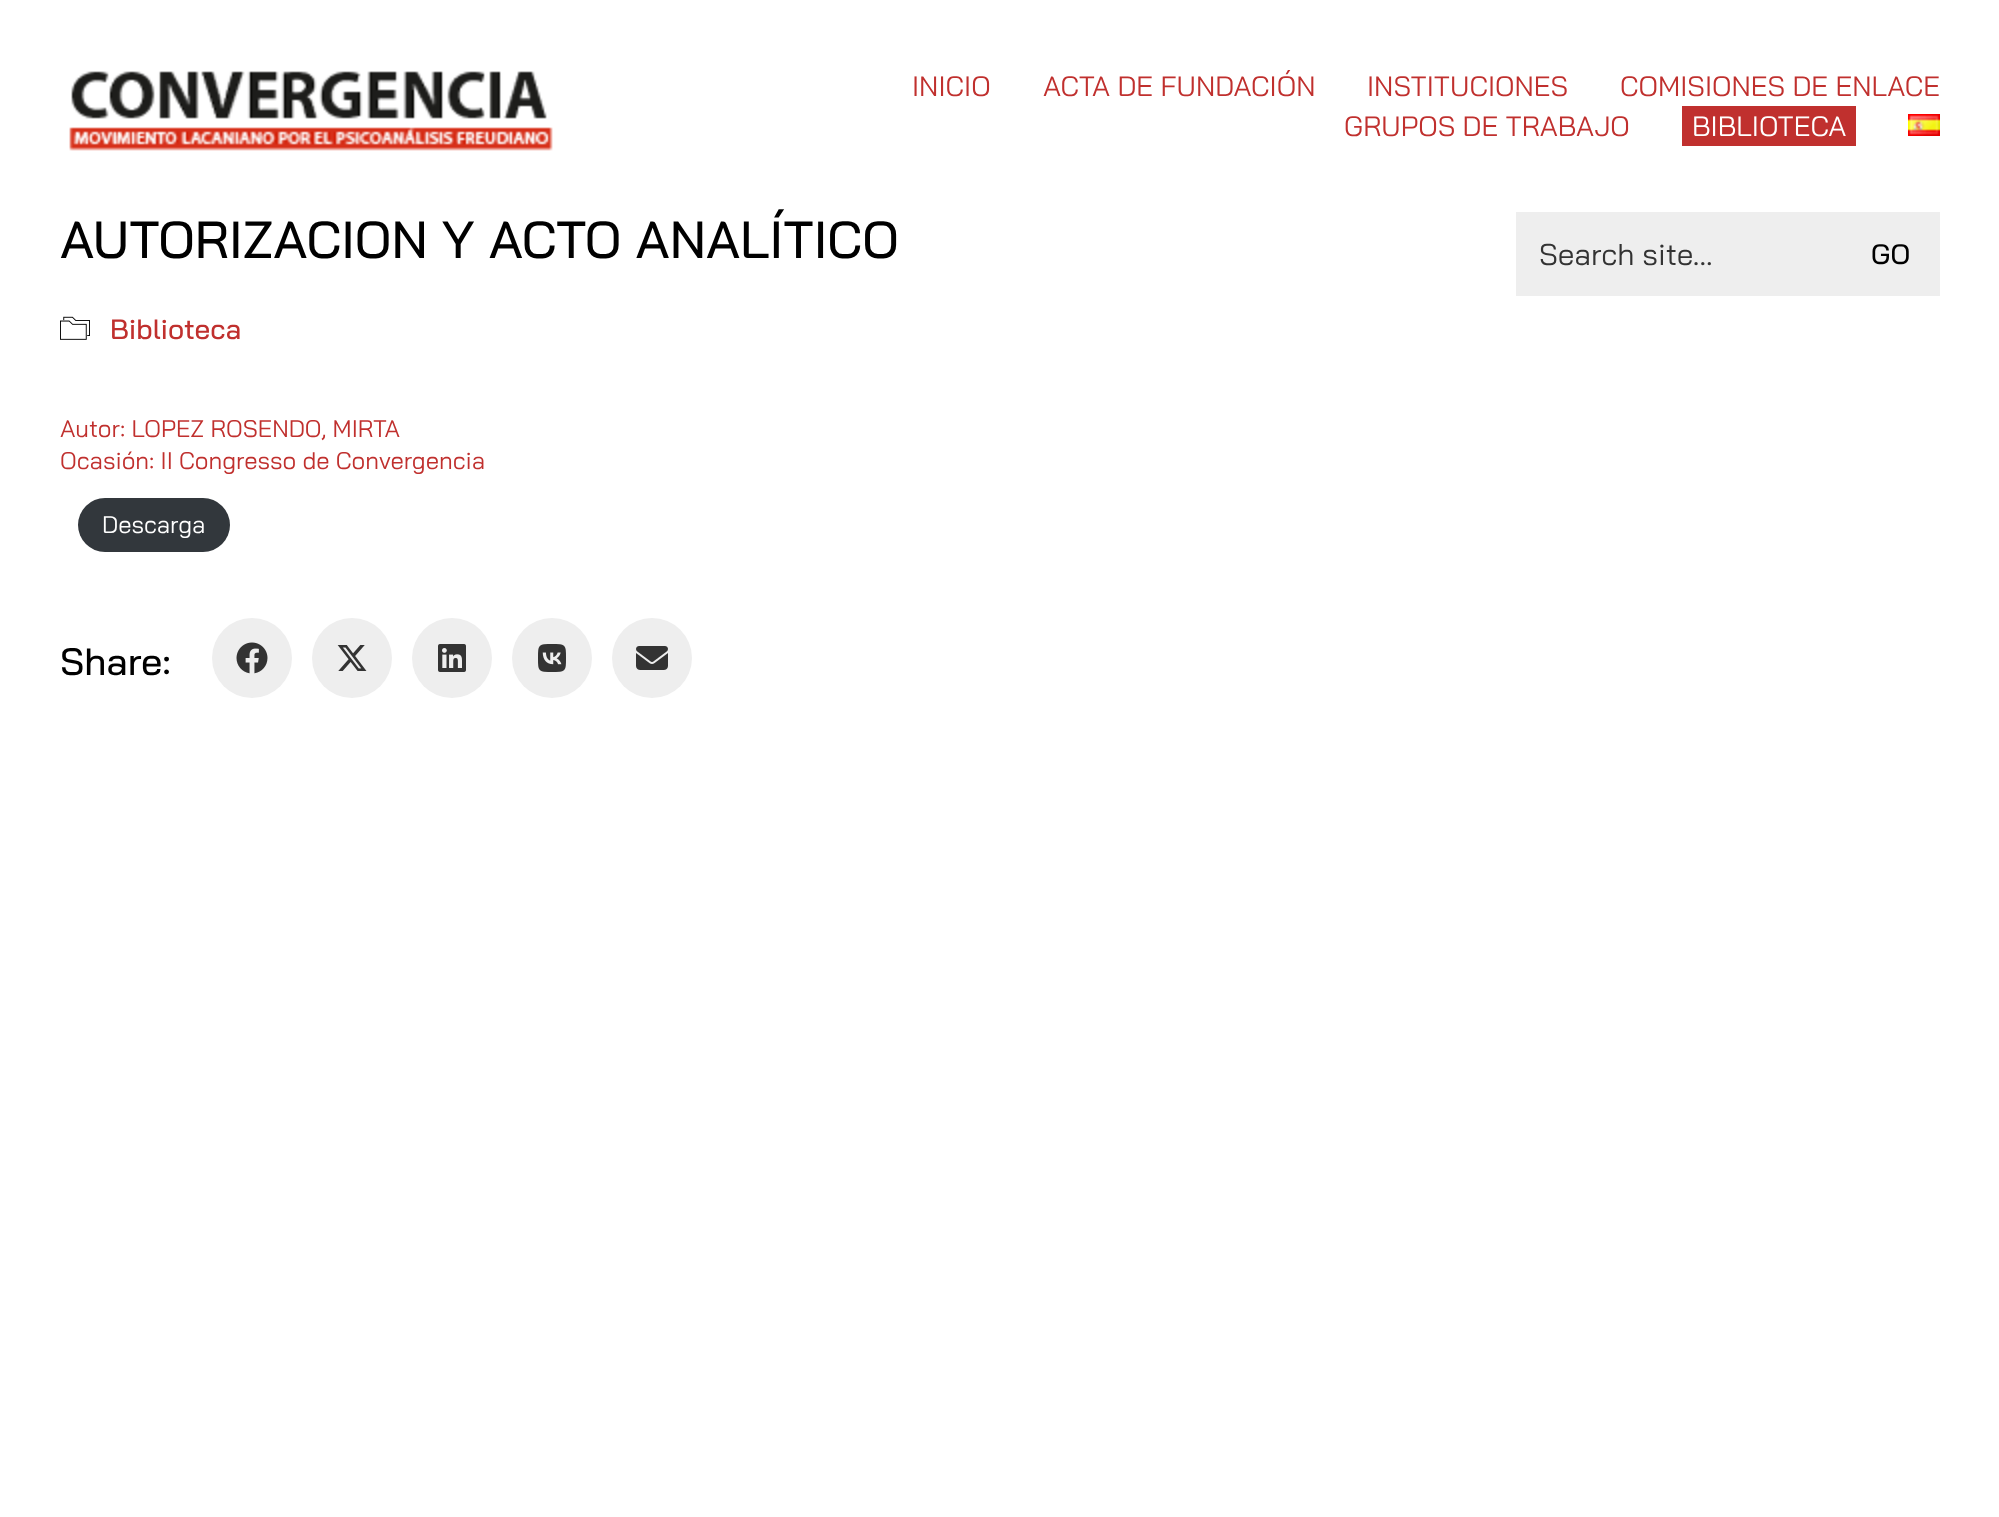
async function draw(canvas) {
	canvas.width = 1999;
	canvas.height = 1517;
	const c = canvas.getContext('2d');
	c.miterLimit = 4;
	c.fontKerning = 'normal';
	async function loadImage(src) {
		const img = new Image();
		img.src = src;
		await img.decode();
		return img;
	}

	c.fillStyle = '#fff';
	c.fillRect(0, 0, 1999, 1517);
	c.drawImage(await loadImage('img1.png'), 69, 71, 484, 80);
	c.font = '28px Bai Jamjuree';
	c.fillStyle = '#c0302e';
	for (const [text, x, y] of [
		['INICIO', 912, 96],
		['ACTA DE FUNDACIÓN', 1043, 96],
		['INSTITUCIONES', 1367, 96],
		['COMISIONES DE ENLACE', 1620, 96],
		['GRUPOS DE TRABAJO', 1344, 136],
	]) {
		c.fillText(text, x, y);
	}
	c.fillRect(1682, 106, 174, 40);
	c.fillStyle = '#fff';
	c.fillText('BIBLIOTECA', 1692, 136);
	c.drawImage(await loadImage('img2.png'), 1908, 114, 32, 22);
	c.font = '500 52px Bai Jamjuree';
	c.fillStyle = '#000';
	c.fillText('AUTORIZACION Y ACTO ANALÍTICO', 60, 258);
	c.drawImage(await loadImage('img3.png'), 60, 316, 30, 24);
	c.font = '500 28px Bai Jamjuree';
	c.fillStyle = '#c0302e';
	c.fillText('Biblioteca', 110, 339);
	c.font = '24px Bai Jamjuree';
	c.fillText('Autor: LOPEZ ROSENDO, MIRTA', 60, 437);
	c.fillText('Ocasión: II Congresso de Convergencia', 60, 469);
	c.fillStyle = '#32373c';
	c.beginPath();
	c.roundRect(78, 498, 152, 54, 27);
	c.fill();
	c.fillStyle = '#fff';
	c.fillText('Descarga', 102, 533);
	c.font = '500 38px Bai Jamjuree';
	c.fillStyle = '#000';
	c.fillText('Share:', 60, 675);
	c.fillStyle = '#eee';
	c.beginPath();
	c.arc(252, 658, 40, 0, 2 * Math.PI);
	c.fill();
	c.drawImage(await loadImage('img4.png'), 236, 642, 32, 32);
	c.beginPath();
	c.arc(352, 658, 40, 0, 2 * Math.PI);
	c.fill();
	c.drawImage(await loadImage('img5.png'), 337, 645, 30, 26);
	c.beginPath();
	c.arc(452, 658, 40, 0, 2 * Math.PI);
	c.fill();
	c.drawImage(await loadImage('img6.png'), 438, 644, 28, 28);
	c.beginPath();
	c.arc(552, 658, 40, 0, 2 * Math.PI);
	c.fill();
	c.drawImage(await loadImage('img7.png'), 538, 644, 28, 28);
	c.beginPath();
	c.arc(652, 658, 40, 0, 2 * Math.PI);
	c.fill();
	c.drawImage(await loadImage('img8.png'), 636, 646, 32, 24);
	c.fillRect(1516, 212, 424, 84);
	c.font = '30px Bai Jamjuree';
	c.fillStyle = '#333';
	c.fillText('Search site...', 1539, 265);
	c.font = '500 28px Bai Jamjuree';
	c.fillStyle = '#000';
	c.fillText('GO', 1871, 264);
}

draw(document.querySelector('canvas'));
